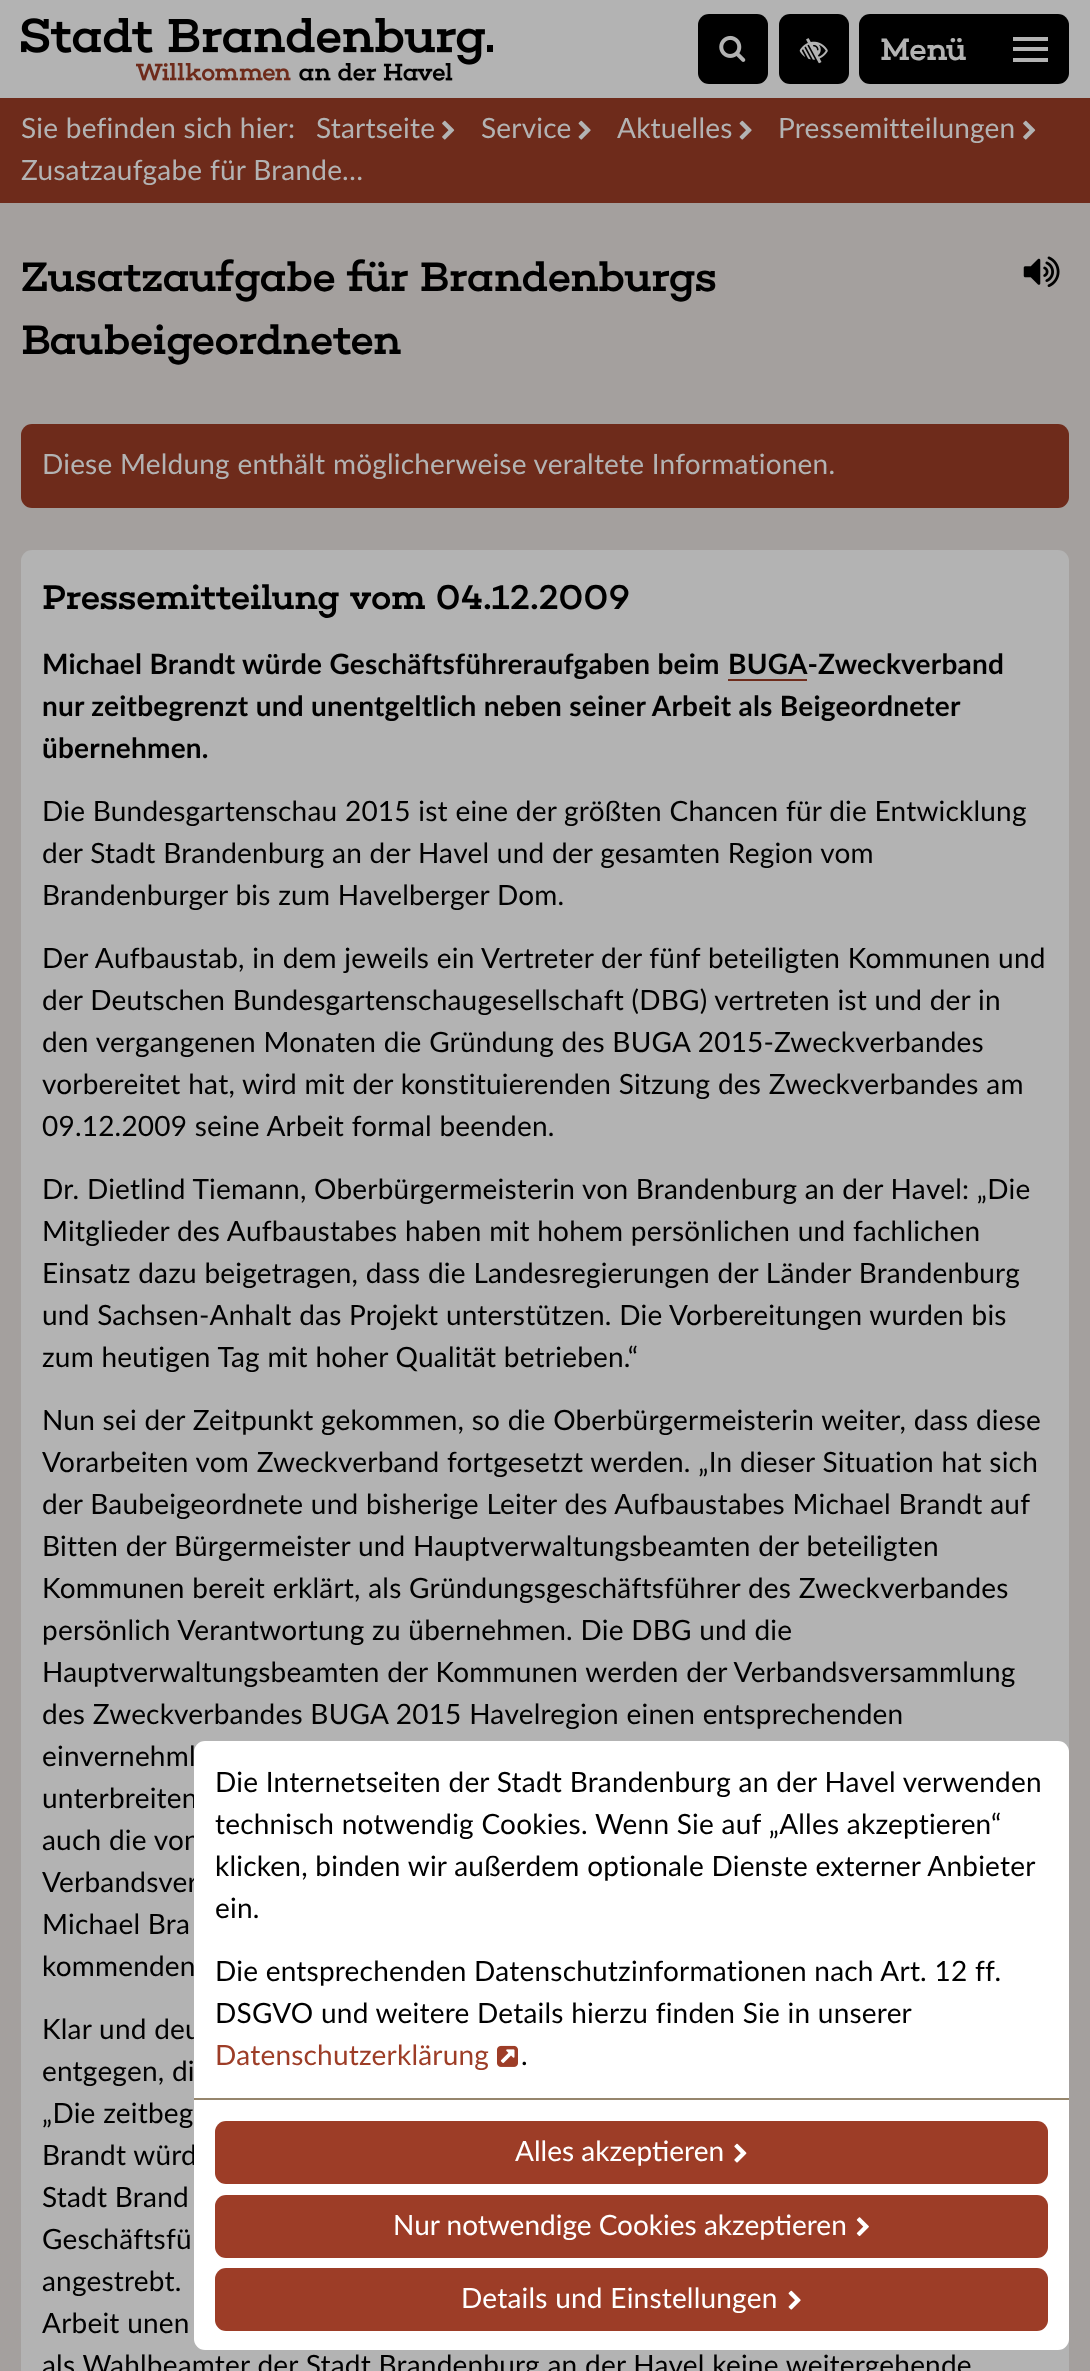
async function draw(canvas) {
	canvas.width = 1090;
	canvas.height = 2371;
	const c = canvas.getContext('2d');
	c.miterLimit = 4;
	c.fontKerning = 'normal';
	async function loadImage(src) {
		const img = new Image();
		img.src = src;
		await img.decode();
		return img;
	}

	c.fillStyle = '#a4a09e';
	c.fillRect(0, 0, 1090, 2371);
	c.fillStyle = '#b3b3b3';
	c.fillRect(0, 0, 1090, 98);
	c.drawImage(await loadImage('img1.png'), 21, 18, 472, 63);
	c.fillStyle = '#000';
	c.beginPath();
	c.roundRect(698, 14, 70, 70, 11);
	c.fill();
	c.drawImage(await loadImage('img2.png'), 719, 35, 27, 27);
	c.beginPath();
	c.roundRect(779, 14, 70, 70, 11);
	c.fill();
	c.drawImage(await loadImage('img3.png'), 799, 38, 29, 26);
	c.beginPath();
	c.roundRect(859, 14, 210, 70, 11);
	c.fill();
	c.font = '500 31.5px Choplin';
	c.fillStyle = '#b3b3b3';
	c.fillText('Menü', 880, 60);
	for (const [x, y, w, h, color] of [
		[1013, 37, 35, 4, '#b3b3b3'],
		[1013, 47, 35, 4, '#b3b3b3'],
		[1013, 58, 35, 4, '#b3b3b3'],
		[0, 98, 1090, 105, '#6e2b1b'],
	]) {
		c.fillStyle = color;
		c.fillRect(x, y, w, h);
	}
	c.letterSpacing = '0.2px';
	c.wordSpacing = '0.25px';
	c.font = '28px Lato';
	c.fillStyle = '#b3b3b3';
	c.fillText('Sie befinden sich hier:', 21, 138);
	c.wordSpacing = '0px';
	c.fillText('Startseite', 316, 138);
	c.drawImage(await loadImage('img4.png'), 442, 120, 13, 20);
	c.fillText('Service', 481, 138);
	c.drawImage(await loadImage('img5.png'), 578, 120, 13, 20);
	c.fillText('Aktuelles', 617, 138);
	c.drawImage(await loadImage('img5.png'), 739, 120, 13, 20);
	c.fillText('Pressemitteilungen', 778, 138);
	c.drawImage(await loadImage('img4.png'), 1023, 120, 13, 20);
	c.wordSpacing = '0.25px';
	c.fillText('Zusatzaufgabe für Brande…', 21, 180);
	c.letterSpacing = '0px';
	c.wordSpacing = '0px';
	c.font = '500 42px Choplin';
	c.fillStyle = '#000';
	c.fillText('Zusatzaufgabe für Brandenburgs', 21, 291);
	c.fillText('Baubeigeordneten', 21, 354);
	c.drawImage(await loadImage('img6.png'), 1023, 256, 37, 31);
	c.fillStyle = '#6e2b1b';
	c.beginPath();
	c.roundRect(21, 424, 1048, 84, 11);
	c.fill();
	c.letterSpacing = '0.2px';
	c.wordSpacing = '0.25px';
	c.font = '28px Lato';
	c.fillStyle = '#b3b3b3';
	c.fillText('Diese Meldung enthält möglicherweise veraltete Informationen.', 42, 474);
	c.beginPath();
	c.roundRect(21, 550, 1048, 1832, 11);
	c.fill();
	c.font = '500 35px Choplin';
	c.fillStyle = '#000';
	c.fillText('Pressemitteilung vom 04.12.2009', 42, 609);
	c.font = 'bold 28px Lato';
	c.fillText('Michael Brandt würde Geschäftsführeraufgaben beim', 42, 674);
	c.wordSpacing = '0px';
	c.fillText('BUGA-Zweckverband', 728, 674);
	c.fillStyle = '#6e2b1b';
	c.fillRect(728, 679, 79, 2);
	c.wordSpacing = '0.25px';
	c.fillStyle = '#000';
	c.fillText('nur zeitbegrenzt und unentgeltlich neben seiner Arbeit als Beigeordneter', 42, 716);
	c.wordSpacing = '0px';
	c.fillText('übernehmen.', 42, 758);
	c.wordSpacing = '0.25px';
	c.font = '28px Lato';
	for (const [text, x, y] of [
		['Die Bundesgartenschau 2015 ist eine der größten Chancen für die Entwicklung', 42, 821],
		['der Stadt Brandenburg an der Havel und der gesamten Region vom', 42, 863],
		['Brandenburger bis zum Havelberger Dom.', 42, 905],
		['Der Aufbaustab, in dem jeweils ein Vertreter der fünf beteiligten Kommunen und', 42, 968],
		['der Deutschen Bundesgartenschaugesellschaft (DBG) vertreten ist und der in', 42, 1010],
		['den vergangenen Monaten die Gründung des BUGA 2015-Zweckverbandes', 42, 1052],
		['vorbereitet hat, wird mit der konstituierenden Sitzung des Zweckverbandes am', 42, 1094],
		['09.12.2009 seine Arbeit formal beenden.', 42, 1136],
		['Dr. Dietlind Tiemann, Oberbürgermeisterin von Brandenburg an der Havel: „Die', 42, 1199],
		['Mitglieder des Aufbaustabes haben mit hohem persönlichen und fachlichen', 42, 1241],
		['Einsatz dazu beigetragen, dass die Landesregierungen der Länder Brandenburg', 42, 1283],
		['und Sachsen-Anhalt das Projekt unterstützen. Die Vorbereitungen wurden bis', 42, 1325],
		['zum heutigen Tag mit hoher Qualität betrieben.“', 42, 1367],
		['Nun sei der Zeitpunkt gekommen, so die Oberbürgermeisterin weiter, dass diese', 42, 1430],
		['Vorarbeiten vom Zweckverband fortgesetzt werden. „In dieser Situation hat sich', 42, 1472],
		['der Baubeigeordnete und bisherige Leiter des Aufbaustabes Michael Brandt auf', 42, 1514],
		['Bitten der Bürgermeister und Hauptverwaltungsbeamten der beteiligten', 42, 1556],
		['Kommunen bereit erklärt, als Gründungsgeschäftsführer des Zweckverbandes', 42, 1598],
		['persönlich Verantwortung zu übernehmen. Die DBG und die', 42, 1640],
		['Hauptverwaltungsbeamten der Kommunen werden der Verbandsversammlung', 42, 1682],
		['des Zweckverbandes BUGA 2015 Havelregion einen entsprechenden', 42, 1724],
		['einvernehml', 42, 1766],
		['unterbreiten', 42, 1808],
		['auch die von', 42, 1850],
		['Verbandsver', 42, 1892],
		['Michael Bra', 42, 1934],
		['kommenden', 42, 1976],
		['Klar und deu', 42, 2039],
		['entgegen, di', 42, 2081],
		['„Die zeitbeg', 42, 2123],
		['Brandt würd', 42, 2165],
		['Stadt Brand', 42, 2207],
		['Geschäftsfü', 42, 2249],
		['angestrebt.', 42, 2291],
		['Arbeit unen', 42, 2333],
		['als Wahlbeamter der Stadt Brandenburg an der Havel keine weitergehende', 42, 2375],
	]) {
		c.fillText(text, x, y);
	}
	c.fillStyle = '#fff';
	c.beginPath();
	c.roundRect(194, 1741, 875, 357, [11, 11, 0, 0]);
	c.fill();
	c.fillStyle = '#000';
	for (const [text, x, y] of [
		['Die Internetseiten der Stadt Brandenburg an der Havel verwenden', 215, 1792],
		['technisch notwendig Cookies. Wenn Sie auf „Alles akzeptieren“', 215, 1834],
		['klicken, binden wir außerdem optionale Dienste externer Anbieter', 215, 1876],
	]) {
		c.fillText(text, x, y);
	}
	c.wordSpacing = '0px';
	c.fillText('ein.', 215, 1918);
	c.wordSpacing = '0.25px';
	c.fillText('Die entsprechenden Datenschutzinformationen nach Art. 12 ff.', 215, 1981);
	c.fillText('DSGVO und weitere Details hierzu finden Sie in unserer', 215, 2023);
	c.wordSpacing = '0px';
	c.fillStyle = '#9d3d27';
	c.fillText('Datenschutzerklärung', 215, 2065);
	c.drawImage(await loadImage('img7.png'), 497, 2045, 21, 22);
	c.fillStyle = '#000';
	c.fillText('.', 521, 2065);
	c.fillStyle = '#fff';
	c.beginPath();
	c.roundRect(194, 2098, 875, 252, [0, 0, 11, 11]);
	c.fill();
	c.fillStyle = '#96866d';
	c.fillRect(194, 2098, 875, 2);
	c.fillStyle = '#9d3d27';
	c.beginPath();
	c.roundRect(215, 2121, 833, 63, 11);
	c.fill();
	c.letterSpacing = '0px';
	c.fillStyle = '#fff';
	c.fillText('Alles akzeptieren', 515, 2161);
	c.drawImage(await loadImage('img8.png'), 734, 2143, 13, 20);
	c.fillStyle = '#9d3d27';
	c.beginPath();
	c.roundRect(215, 2195, 833, 63, 11);
	c.fill();
	c.fillStyle = '#fff';
	c.fillText('Nur notwendige Cookies akzeptieren', 393, 2235);
	c.drawImage(await loadImage('img9.png'), 856, 2217, 13, 19);
	c.fillStyle = '#9d3d27';
	c.beginPath();
	c.roundRect(215, 2268, 833, 63, 11);
	c.fill();
	c.letterSpacing = '0.2px';
	c.wordSpacing = '0.25px';
	c.fillStyle = '#fff';
	c.fillText('Details und Einstellungen', 461, 2308);
	c.drawImage(await loadImage('img10.png'), 788, 2290, 13, 20);
}

draw(document.querySelector('canvas'));
